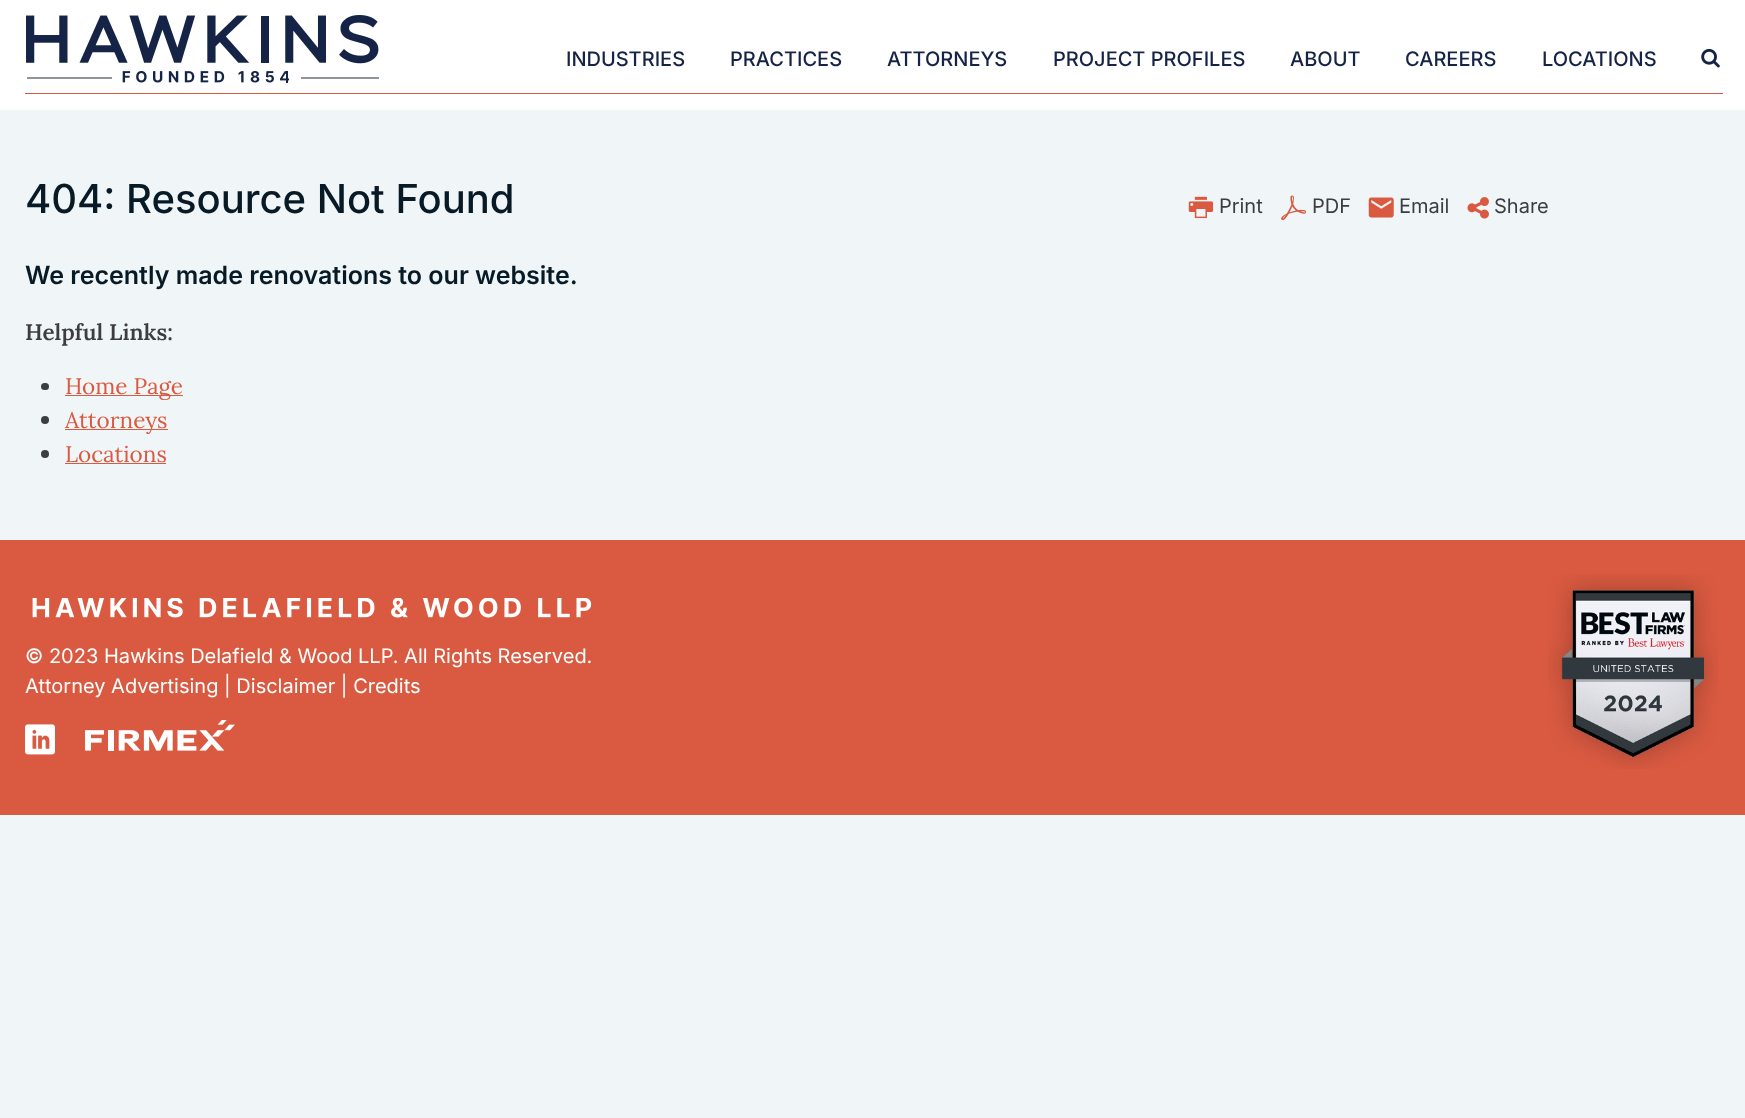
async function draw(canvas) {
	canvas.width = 1745;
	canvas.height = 1118;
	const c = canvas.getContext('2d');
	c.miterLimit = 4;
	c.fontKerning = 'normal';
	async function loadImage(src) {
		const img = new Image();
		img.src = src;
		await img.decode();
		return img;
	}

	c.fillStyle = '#f0f5f7';
	c.fillRect(0, 0, 1745, 1118);
	c.fillStyle = '#fff';
	c.fillRect(0, 0, 1745, 110);
	c.drawImage(await loadImage('img1.png'), 26, 15, 353, 68);
	c.font = '500 20px Inter';
	c.fillStyle = '#152446';
	for (const [text, x, y] of [
		['INDUSTRIES', 566, 66],
		['PRACTICES', 730, 66],
		['ATTORNEYS', 887, 66],
		['PROJECT PROFILES', 1053, 66],
		['ABOUT', 1290, 66],
		['CAREERS', 1405, 66],
		['LOCATIONS', 1542, 66],
	]) {
		c.fillText(text, x, y);
	}
	c.drawImage(await loadImage('img2.png'), 1701, 48, 19, 20);
	c.fillStyle = '#d95a41';
	c.fillRect(25, 93, 1698, 1);
	c.font = '500 40px Inter';
	c.fillStyle = '#071a26';
	c.fillText('404: Resource Not Found', 25, 213);
	c.drawImage(await loadImage('img3.png'), 1188, 196, 26, 23);
	c.font = '20px Inter';
	c.fillStyle = '#3b3d40';
	c.fillText('Print', 1219, 213);
	c.drawImage(await loadImage('img4.png'), 1281, 195, 25, 25);
	c.fillText('PDF', 1312, 213);
	c.drawImage(await loadImage('img5.png'), 1368, 197, 26, 21);
	c.fillText('Email', 1399, 213);
	c.drawImage(await loadImage('img6.png'), 1467, 197, 22, 22);
	c.fillText('Share', 1494, 213);
	c.font = '600 25px Inter';
	c.fillStyle = '#071a26';
	c.fillText('We recently made renovations to our website.', 25, 284);
	c.font = '600 22.5px Lora';
	c.fillStyle = '#3b3d40';
	c.fillText('Helpful Links:', 25, 340);
	c.beginPath();
	c.roundRect(41, 383, 8, 7, 3.5);
	c.fill();
	c.fillStyle = '#d95a41';
	c.fillRect(65, 395, 118, 1);
	c.font = '22.5px Lora';
	c.fillText('Home Page', 65, 394);
	c.fillStyle = '#3b3d40';
	c.beginPath();
	c.arc(45, 420, 4, 0, 2 * Math.PI);
	c.fill();
	c.fillStyle = '#d95a41';
	c.fillRect(65, 429, 103, 1);
	c.fillText('Attorneys', 65, 428);
	c.fillStyle = '#3b3d40';
	c.beginPath();
	c.arc(45, 454, 4, 0, 2 * Math.PI);
	c.fill();
	c.fillStyle = '#d95a41';
	c.fillText('Locations', 65, 462);
	c.fillRect(65, 463, 101, 1);
	c.fillRect(0, 540, 1745, 275);
	c.drawImage(await loadImage('img7.png'), 32, 598, 560, 20);
	c.font = '20px Inter';
	c.fillStyle = '#fff';
	c.fillText('© 2023 Hawkins Delafield & Wood LLP. All Rights Reserved.', 25, 663);
	c.fillText('Attorney Advertising | Disclaimer | Credits', 25, 693);
	c.drawImage(await loadImage('img8.png'), 25, 724, 30, 31);
	c.drawImage(await loadImage('img9.png'), 85, 720, 150, 31);
	c.drawImage(await loadImage('img10.png'), 1548, 574, 170, 195);
}

draw(document.querySelector('canvas'));
